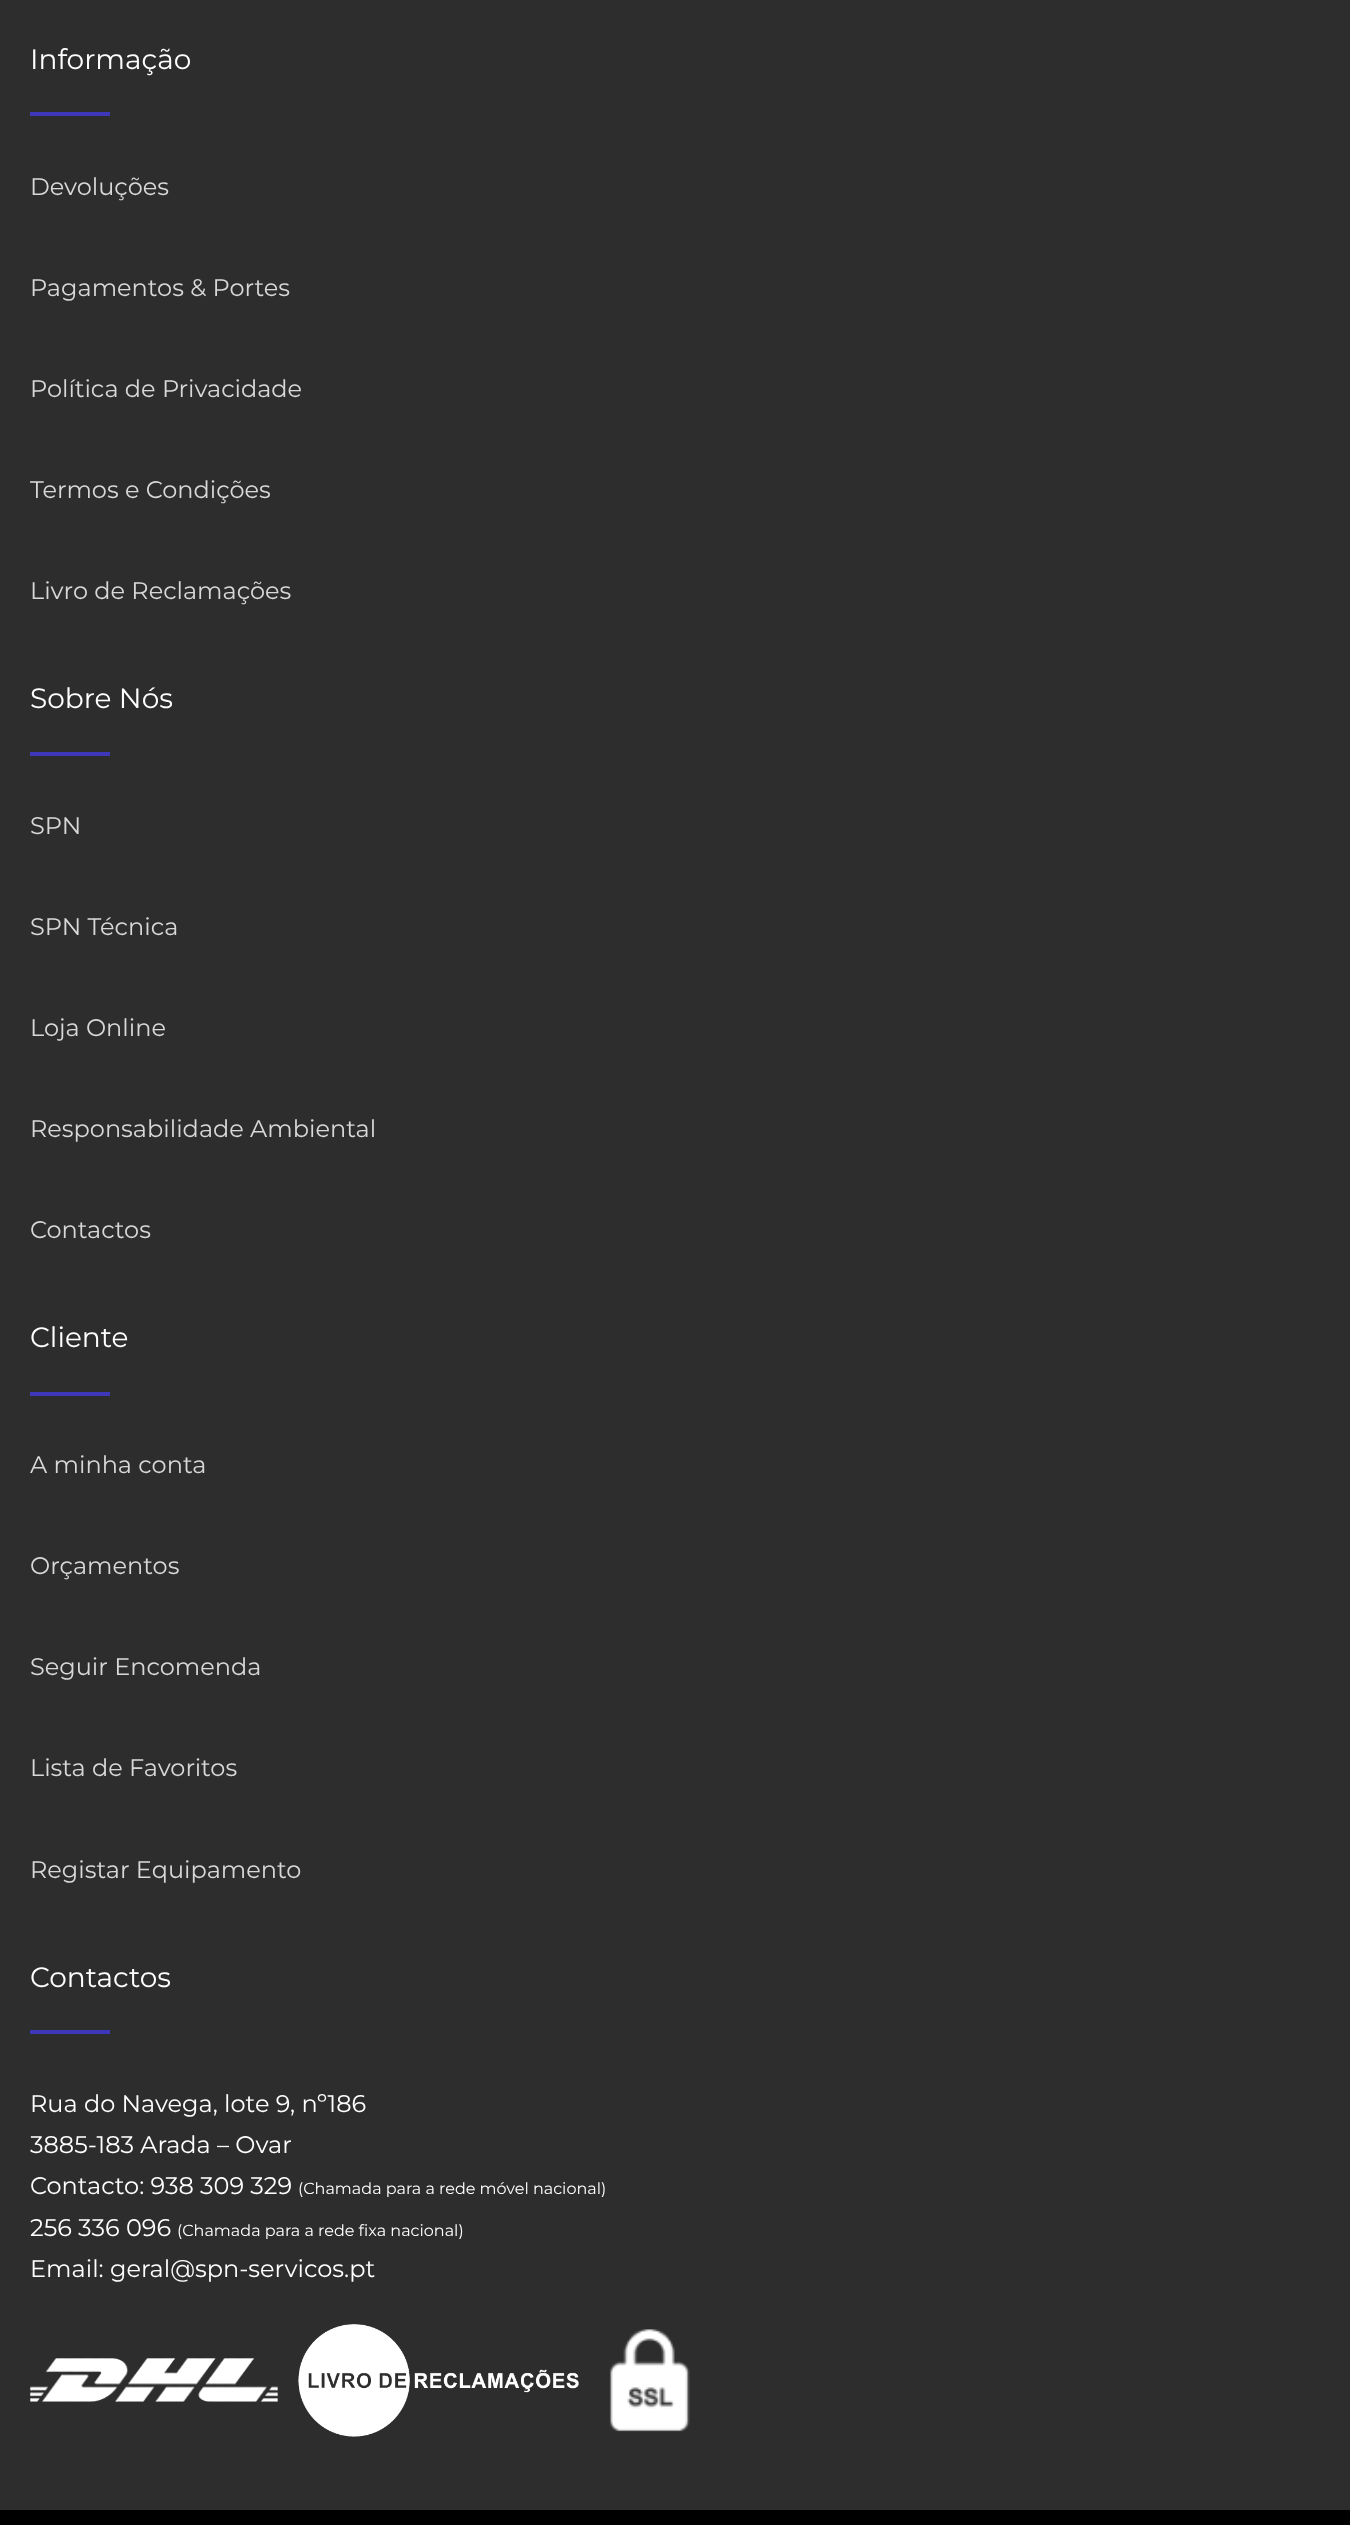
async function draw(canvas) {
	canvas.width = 1350;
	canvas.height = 2525;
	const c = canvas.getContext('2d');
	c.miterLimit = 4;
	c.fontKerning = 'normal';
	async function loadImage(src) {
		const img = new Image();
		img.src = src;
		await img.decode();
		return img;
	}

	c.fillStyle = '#2d2d2d';
	c.fillRect(0, 0, 1350, 2525);
	c.font = '28px Montserrat';
	c.fillStyle = '#fff';
	c.fillText('Informação', 30, 69);
	c.fillStyle = '#3e37ba';
	c.fillRect(30, 112, 80, 4);
	c.font = '24px Montserrat';
	c.fillStyle = '#d8d8d8';
	for (const [text, x, y] of [
		['Devoluções', 30, 195],
		['Pagamentos & Portes', 30, 296],
		['Política de Privacidade', 30, 397],
		['Termos e Condições', 30, 498],
		['Livro de Reclamações', 30, 599],
	]) {
		c.fillText(text, x, y);
	}
	c.font = '28px Montserrat';
	c.fillStyle = '#fff';
	c.fillText('Sobre Nós', 30, 708);
	c.fillStyle = '#3e37ba';
	c.fillRect(30, 752, 80, 4);
	c.font = '24px Montserrat';
	c.fillStyle = '#d8d8d8';
	for (const [text, x, y] of [
		['SPN', 30, 834],
		['SPN Técnica', 30, 935],
		['Loja Online', 30, 1036],
		['Responsabilidade Ambiental', 30, 1137],
		['Contactos', 30, 1238],
	]) {
		c.fillText(text, x, y);
	}
	c.font = '28px Montserrat';
	c.fillStyle = '#fff';
	c.fillText('Cliente', 30, 1347);
	c.fillStyle = '#3e37ba';
	c.fillRect(30, 1392, 80, 4);
	c.font = '24px Montserrat';
	c.fillStyle = '#d8d8d8';
	for (const [text, x, y] of [
		['A minha conta', 30, 1473],
		['Orçamentos', 30, 1574],
		['Seguir Encomenda', 30, 1675],
		['Lista de Favoritos', 30, 1776],
		['Registar Equipamento', 30, 1878],
	]) {
		c.fillText(text, x, y);
	}
	c.font = '28px Montserrat';
	c.fillStyle = '#fff';
	c.fillText('Contactos', 30, 1987);
	c.fillStyle = '#3e37ba';
	c.fillRect(30, 2030, 80, 4);
	c.font = '24px Montserrat';
	c.fillStyle = '#fff';
	for (const [text, x, y] of [
		['Rua do Navega, lote 9, nº186', 30, 2112],
		['3885-183 Arada – Ovar', 30, 2153],
		['Contacto: 938 309 329', 30, 2194],
	]) {
		c.fillText(text, x, y);
	}
	c.font = '16px Montserrat';
	c.fillText('(Chamada para a rede móvel nacional)', 298, 2194);
	c.font = '24px Montserrat';
	c.fillText('256 336 096', 30, 2236);
	c.font = '16px Montserrat';
	c.fillText('(Chamada para a rede fixa nacional)', 177, 2236);
	c.font = '24px Montserrat';
	c.fillText('Email: geral@spn-servicos.pt', 30, 2277);
	c.drawImage(await loadImage('img1.png'), 30, 2358, 248, 44);
	c.drawImage(await loadImage('img2.png'), 298, 2324, 281, 113);
	c.drawImage(await loadImage('img3.png'), 609, 2329, 81, 103);
	c.fillStyle = '#000';
	c.fillRect(0, 2510, 1350, 15);
}

draw(document.querySelector('canvas'));
